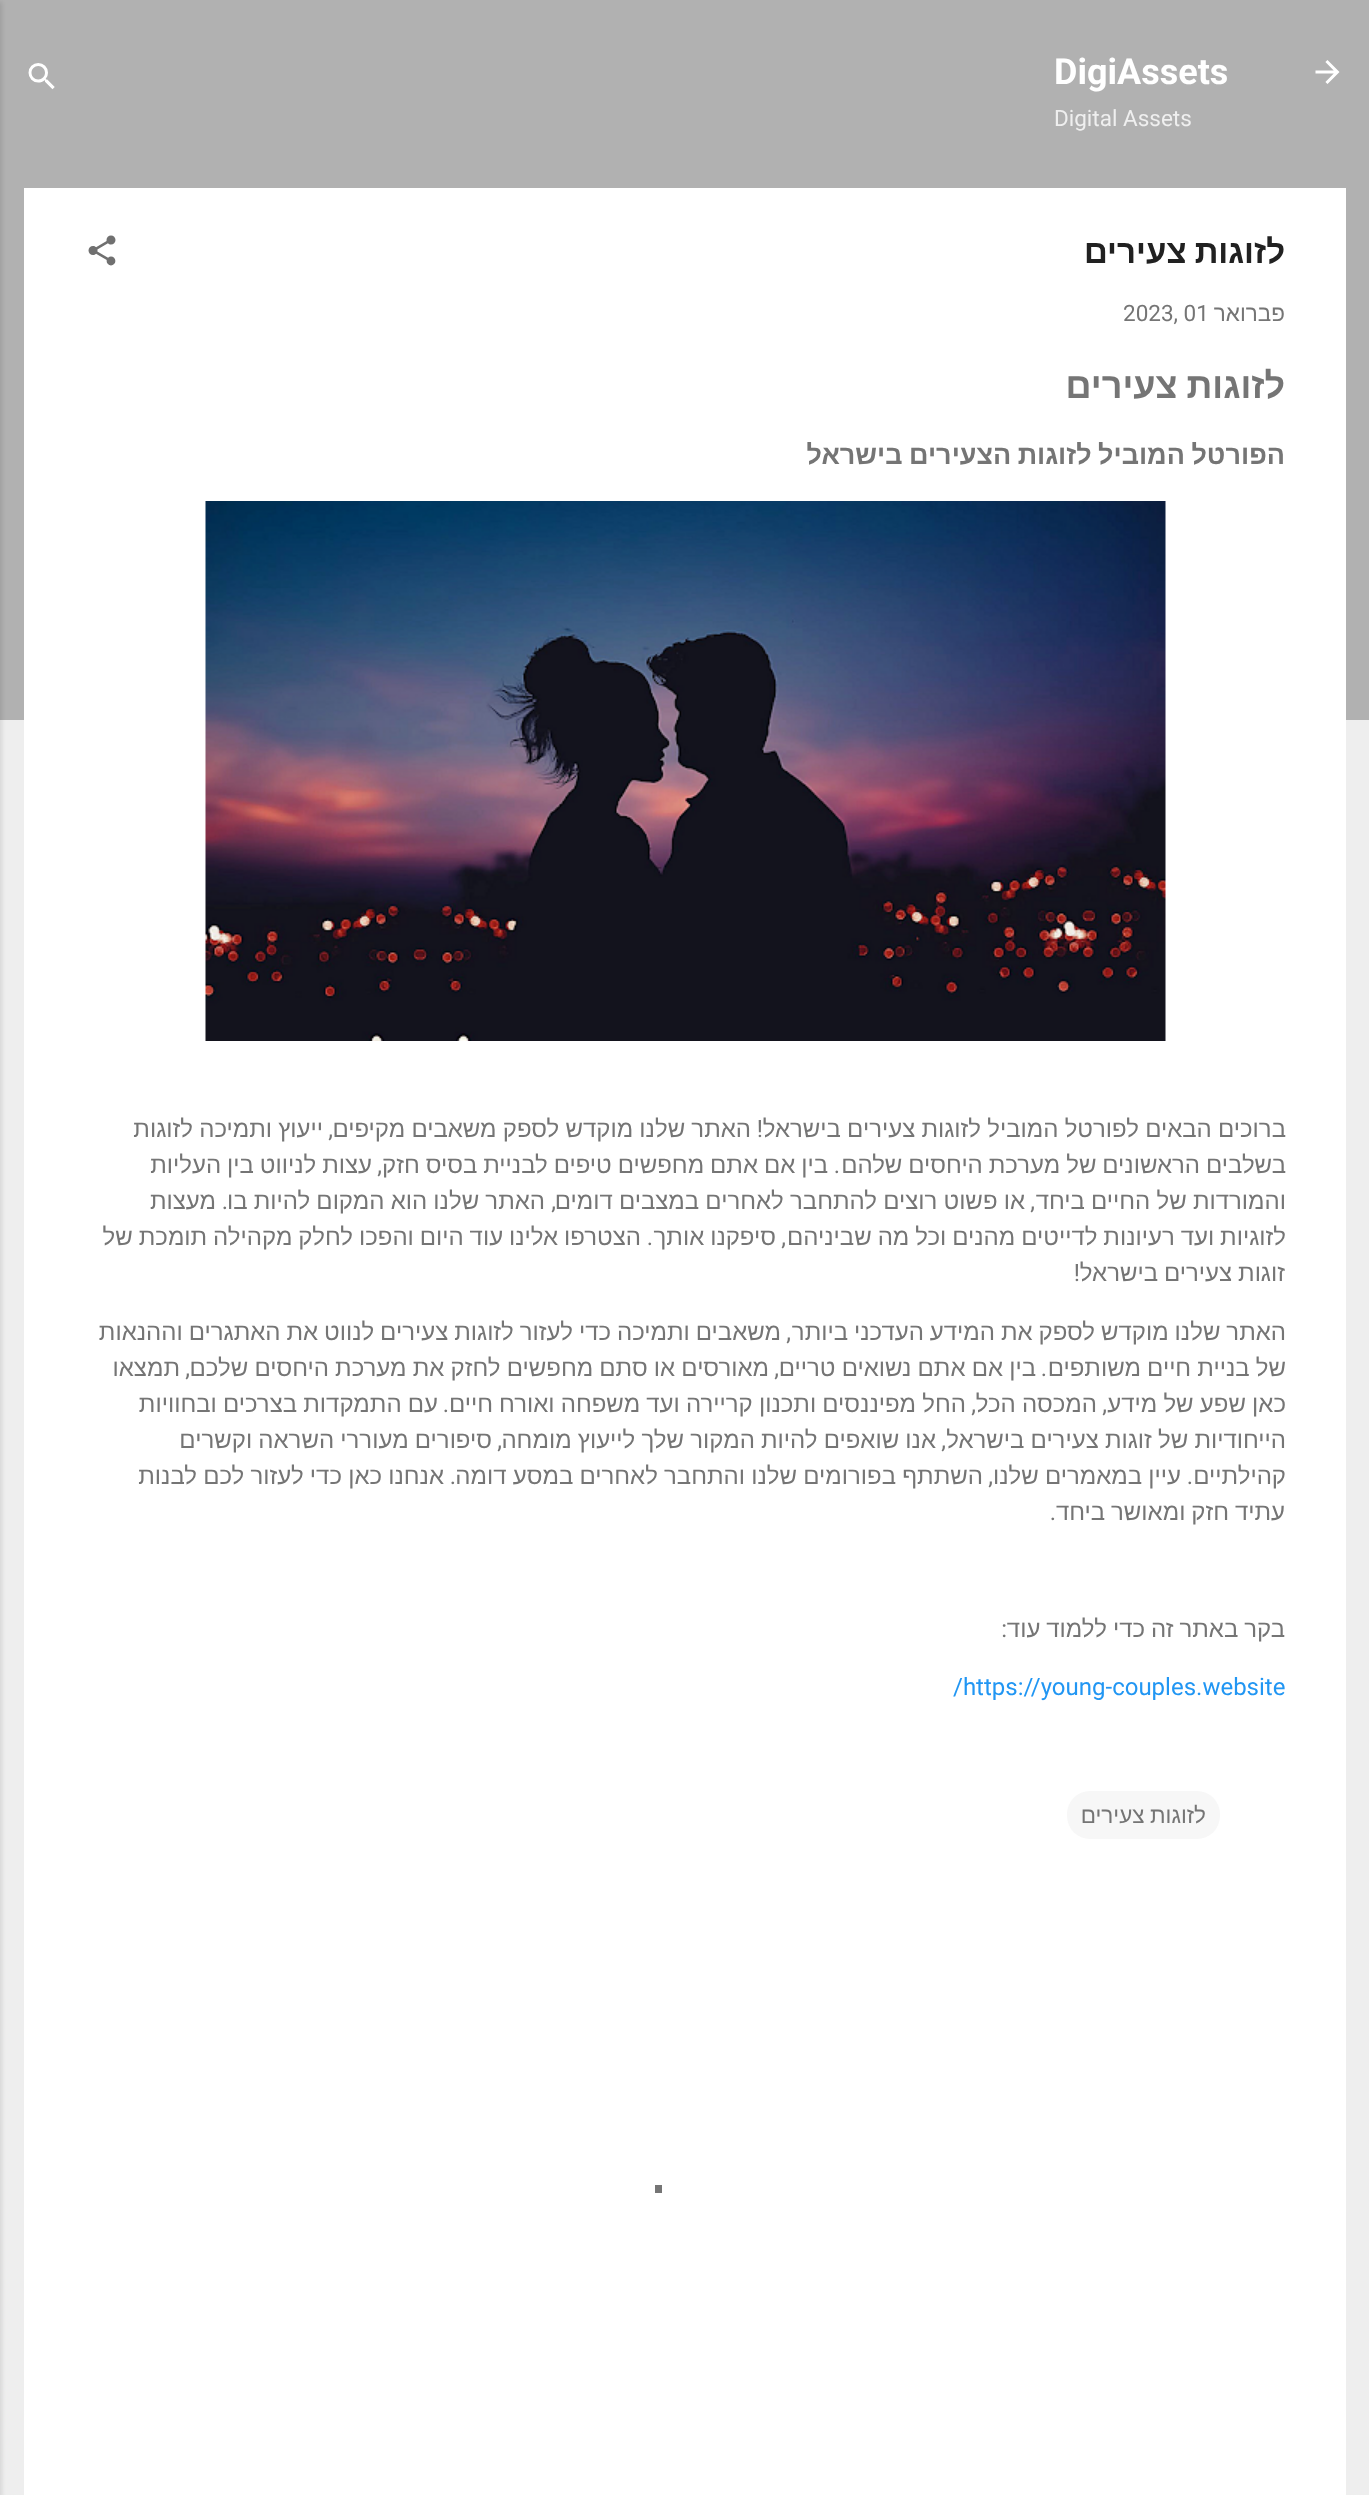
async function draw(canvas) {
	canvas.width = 1369;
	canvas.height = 2495;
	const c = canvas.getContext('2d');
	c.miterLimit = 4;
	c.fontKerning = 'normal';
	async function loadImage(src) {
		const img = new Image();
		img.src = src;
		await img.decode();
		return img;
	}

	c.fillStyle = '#eee';
	c.fillRect(0, 0, 1369, 2495);
	c.fillStyle = '#b1b1b1';
	c.fillRect(0, 0, 1369, 720);
	c.drawImage(await loadImage('img1.png'), 1315, 60, 25, 24);
	c.font = 'bold 36px Roboto';
	c.fillStyle = '#fff';
	c.fillText('DigiAssets', 1054, 84);
	c.font = '22.5px Roboto';
	c.fillStyle = '#efefef';
	c.fillText('Digital Assets', 1054, 126);
	c.drawImage(await loadImage('img2.png'), 28, 63, 27, 27);
	c.fillStyle = '#fff';
	c.fillRect(24, 188, 1322, 2307);
	c.wordSpacing = '-1px';
	c.direction = 'rtl';
	c.font = 'bold 33px Liberation Sans';
	c.fillStyle = '#212121';
	c.fillText('לזוגות צעירים', 1285, 263);
	c.drawImage(await loadImage('img3.png'), 88, 235, 28, 31);
	c.wordSpacing = '0px';
	c.font = '22.5px Liberation Sans';
	c.fillStyle = '#757575';
	c.fillText('פברואר', 1285, 321);
	c.direction = 'ltr';
	c.font = '22.5px Roboto';
	c.fillText('2023, 01', 1123, 321);
	c.wordSpacing = '-1px';
	c.direction = 'rtl';
	c.font = 'bold 36px Liberation Sans';
	c.fillText('לזוגות צעירים', 1285, 398);
	c.font = 'bold 27px Liberation Sans';
	c.fillText('הפורטל המוביל לזוגות הצעירים בישראל', 1285, 464);
	c.drawImage(await loadImage('img4.png'), 205, 501, 961, 540);
	c.wordSpacing = '-0.5px';
	c.font = '24px Liberation Sans';
	c.fillText('ברוכים הבאים לפורטל המוביל לזוגות צעירים בישראל', 1286, 1137);
	c.wordSpacing = '0px';
	c.font = '24px Roboto';
	c.fillText('!', 763, 1137);
	c.wordSpacing = '-0.5px';
	c.font = '24px Liberation Sans';
	c.fillText('האתר שלנו מוקדש לספק משאבים מקיפים', 751, 1137);
	c.wordSpacing = '0px';
	c.font = '24px Roboto';
	c.fillText(',', 333, 1137);
	c.wordSpacing = '-0.5px';
	c.font = '24px Liberation Sans';
	c.fillText('ייעוץ ותמיכה לזוגות', 323, 1137);
	c.wordSpacing = '-0.75px';
	c.fillText('בשלבים הראשונים של מערכת היחסים שלהם', 1286, 1173);
	c.wordSpacing = '0px';
	c.font = '24px Roboto';
	c.fillText('.', 840, 1173);
	c.wordSpacing = '-0.75px';
	c.font = '24px Liberation Sans';
	c.fillText('בין אם אתם מחפשים טיפים לבניית בסיס חזק', 828, 1173);
	c.wordSpacing = '0px';
	c.font = '24px Roboto';
	c.fillText(',', 382, 1173);
	c.wordSpacing = '-0.75px';
	c.font = '24px Liberation Sans';
	c.fillText('עצות לניווט בין העליות', 372, 1173);
	c.wordSpacing = '-0.5px';
	c.fillText('והמורדות של החיים ביחד', 1286, 1209);
	c.wordSpacing = '0px';
	c.font = '24px Roboto';
	c.fillText(',', 1035, 1209);
	c.wordSpacing = '-0.5px';
	c.font = '24px Liberation Sans';
	c.fillText('או פשוט רוצים להתחבר לאחרים במצבים דומים', 1025, 1209);
	c.wordSpacing = '0px';
	c.font = '24px Roboto';
	c.fillText(',', 556, 1209);
	c.wordSpacing = '-0.5px';
	c.font = '24px Liberation Sans';
	c.fillText('האתר שלנו הוא המקום להיות בו', 545, 1209);
	c.wordSpacing = '0px';
	c.font = '24px Roboto';
	c.fillText('.', 228, 1209);
	c.font = '24px Liberation Sans';
	c.fillText('מעצות', 216, 1209);
	c.wordSpacing = '-0.75px';
	c.fillText('לזוגיות ועד רעיונות לדייטים מהנים וכל מה שביניהם', 1286, 1245);
	c.wordSpacing = '0px';
	c.font = '24px Roboto';
	c.fillText(',', 786, 1245);
	c.wordSpacing = '-0.75px';
	c.font = '24px Liberation Sans';
	c.fillText('סיפקנו אותך', 776, 1245);
	c.wordSpacing = '0px';
	c.font = '24px Roboto';
	c.fillText('.', 653, 1245);
	c.wordSpacing = '-0.75px';
	c.font = '24px Liberation Sans';
	c.fillText('הצטרפו אלינו עוד היום והפכו לחלק מקהילה תומכת של', 641, 1245);
	c.fillText('זוגות צעירים בישראל', 1285, 1281);
	c.wordSpacing = '0px';
	c.font = '24px Roboto';
	c.fillText('!', 1080, 1281);
	c.wordSpacing = '-0.75px';
	c.font = '24px Liberation Sans';
	c.fillText('האתר שלנו מוקדש לספק את המידע העדכני ביותר', 1286, 1340);
	c.wordSpacing = '0px';
	c.font = '24px Roboto';
	c.fillText(',', 791, 1340);
	c.wordSpacing = '-0.75px';
	c.font = '24px Liberation Sans';
	c.fillText('משאבים ותמיכה כדי לעזור לזוגות צעירים לנווט את האתגרים וההנאות', 781, 1340);
	c.wordSpacing = '-0.5px';
	c.fillText('של בניית חיים משותפים', 1286, 1376);
	c.wordSpacing = '0px';
	c.font = '24px Roboto';
	c.fillText('.', 1047, 1376);
	c.wordSpacing = '-0.5px';
	c.font = '24px Liberation Sans';
	c.fillText('בין אם אתם נשואים טריים', 1036, 1376);
	c.wordSpacing = '0px';
	c.font = '24px Roboto';
	c.fillText(',', 779, 1376);
	c.wordSpacing = '-0.5px';
	c.font = '24px Liberation Sans';
	c.fillText('מאורסים או סתם מחפשים לחזק את מערכת היחסים שלכם', 769, 1376);
	c.wordSpacing = '0px';
	c.font = '24px Roboto';
	c.fillText(',', 190, 1376);
	c.font = '24px Liberation Sans';
	c.fillText('תמצאו', 180, 1376);
	c.wordSpacing = '-0.5px';
	c.fillText('כאן שפע של מידע', 1286, 1412);
	c.wordSpacing = '0px';
	c.font = '24px Roboto';
	c.fillText(',', 1107, 1412);
	c.wordSpacing = '-0.5px';
	c.font = '24px Liberation Sans';
	c.fillText('המכסה הכל', 1097, 1412);
	c.wordSpacing = '0px';
	c.font = '24px Roboto';
	c.fillText(',', 976, 1412);
	c.wordSpacing = '-0.5px';
	c.font = '24px Liberation Sans';
	c.fillText('החל מפיננסים ותכנון קריירה ועד משפחה ואורח חיים', 966, 1412);
	c.wordSpacing = '0px';
	c.font = '24px Roboto';
	c.fillText('.', 449, 1412);
	c.wordSpacing = '-0.5px';
	c.font = '24px Liberation Sans';
	c.fillText('עם התמקדות בצרכים ובחוויות', 438, 1412);
	c.fillText('הייחודיות של זוגות צעירים בישראל', 1286, 1448);
	c.wordSpacing = '0px';
	c.font = '24px Roboto';
	c.fillText(',', 946, 1448);
	c.wordSpacing = '-0.5px';
	c.font = '24px Liberation Sans';
	c.fillText('אנו שואפים להיות המקור שלך לייעוץ מומחה', 936, 1448);
	c.wordSpacing = '0px';
	c.font = '24px Roboto';
	c.fillText(',', 502, 1448);
	c.wordSpacing = '-0.5px';
	c.font = '24px Liberation Sans';
	c.fillText('סיפורים מעוררי השראה וקשרים', 492, 1448);
	c.wordSpacing = '0px';
	c.fillText('קהילתיים', 1286, 1484);
	c.font = '24px Roboto';
	c.fillText('.', 1193, 1484);
	c.wordSpacing = '-0.5px';
	c.font = '24px Liberation Sans';
	c.fillText('עיין במאמרים שלנו', 1181, 1484);
	c.wordSpacing = '0px';
	c.font = '24px Roboto';
	c.fillText(',', 993, 1484);
	c.wordSpacing = '-0.5px';
	c.font = '24px Liberation Sans';
	c.fillText('השתתף בפורומים שלנו והתחבר לאחרים במסע דומה', 983, 1484);
	c.wordSpacing = '0px';
	c.font = '24px Roboto';
	c.fillText('.', 456, 1484);
	c.wordSpacing = '-0.5px';
	c.font = '24px Liberation Sans';
	c.fillText('אנחנו כאן כדי לעזור לכם לבנות', 444, 1484);
	c.wordSpacing = '-0.75px';
	c.fillText('עתיד חזק ומאושר ביחד', 1285, 1520);
	c.wordSpacing = '0px';
	c.font = '24px Roboto';
	c.fillText('.', 1056, 1520);
	c.wordSpacing = '-0.75px';
	c.font = '24px Liberation Sans';
	c.fillText('בקר באתר זה כדי ללמוד עוד', 1285, 1637);
	c.wordSpacing = '0px';
	c.font = '24px Roboto';
	c.fillText(':', 1007, 1637);
	c.direction = 'ltr';
	c.fillStyle = '#2196f3';
	c.fillText('/https://young-couples.website', 953, 1695);
	c.fillStyle = '#f7f7f7';
	c.beginPath();
	c.roundRect(1067, 1791, 153, 48, 23);
	c.fill();
	c.wordSpacing = '-0.75px';
	c.direction = 'rtl';
	c.font = '22.5px Liberation Sans';
	c.fillStyle = '#757575';
	c.fillText('לזוגות צעירים', 1206, 1823);
	c.fillStyle = '#0000001a';
	c.filter = 'blur(2px)';
	c.beginPath();
	c.rect(-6, 2, 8, 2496);
	c.fill();
	c.filter = 'none';
	c.fillStyle = '#757575';
	c.fillRect(655, 2185, 7, 8);
}

draw(document.querySelector('canvas'));
